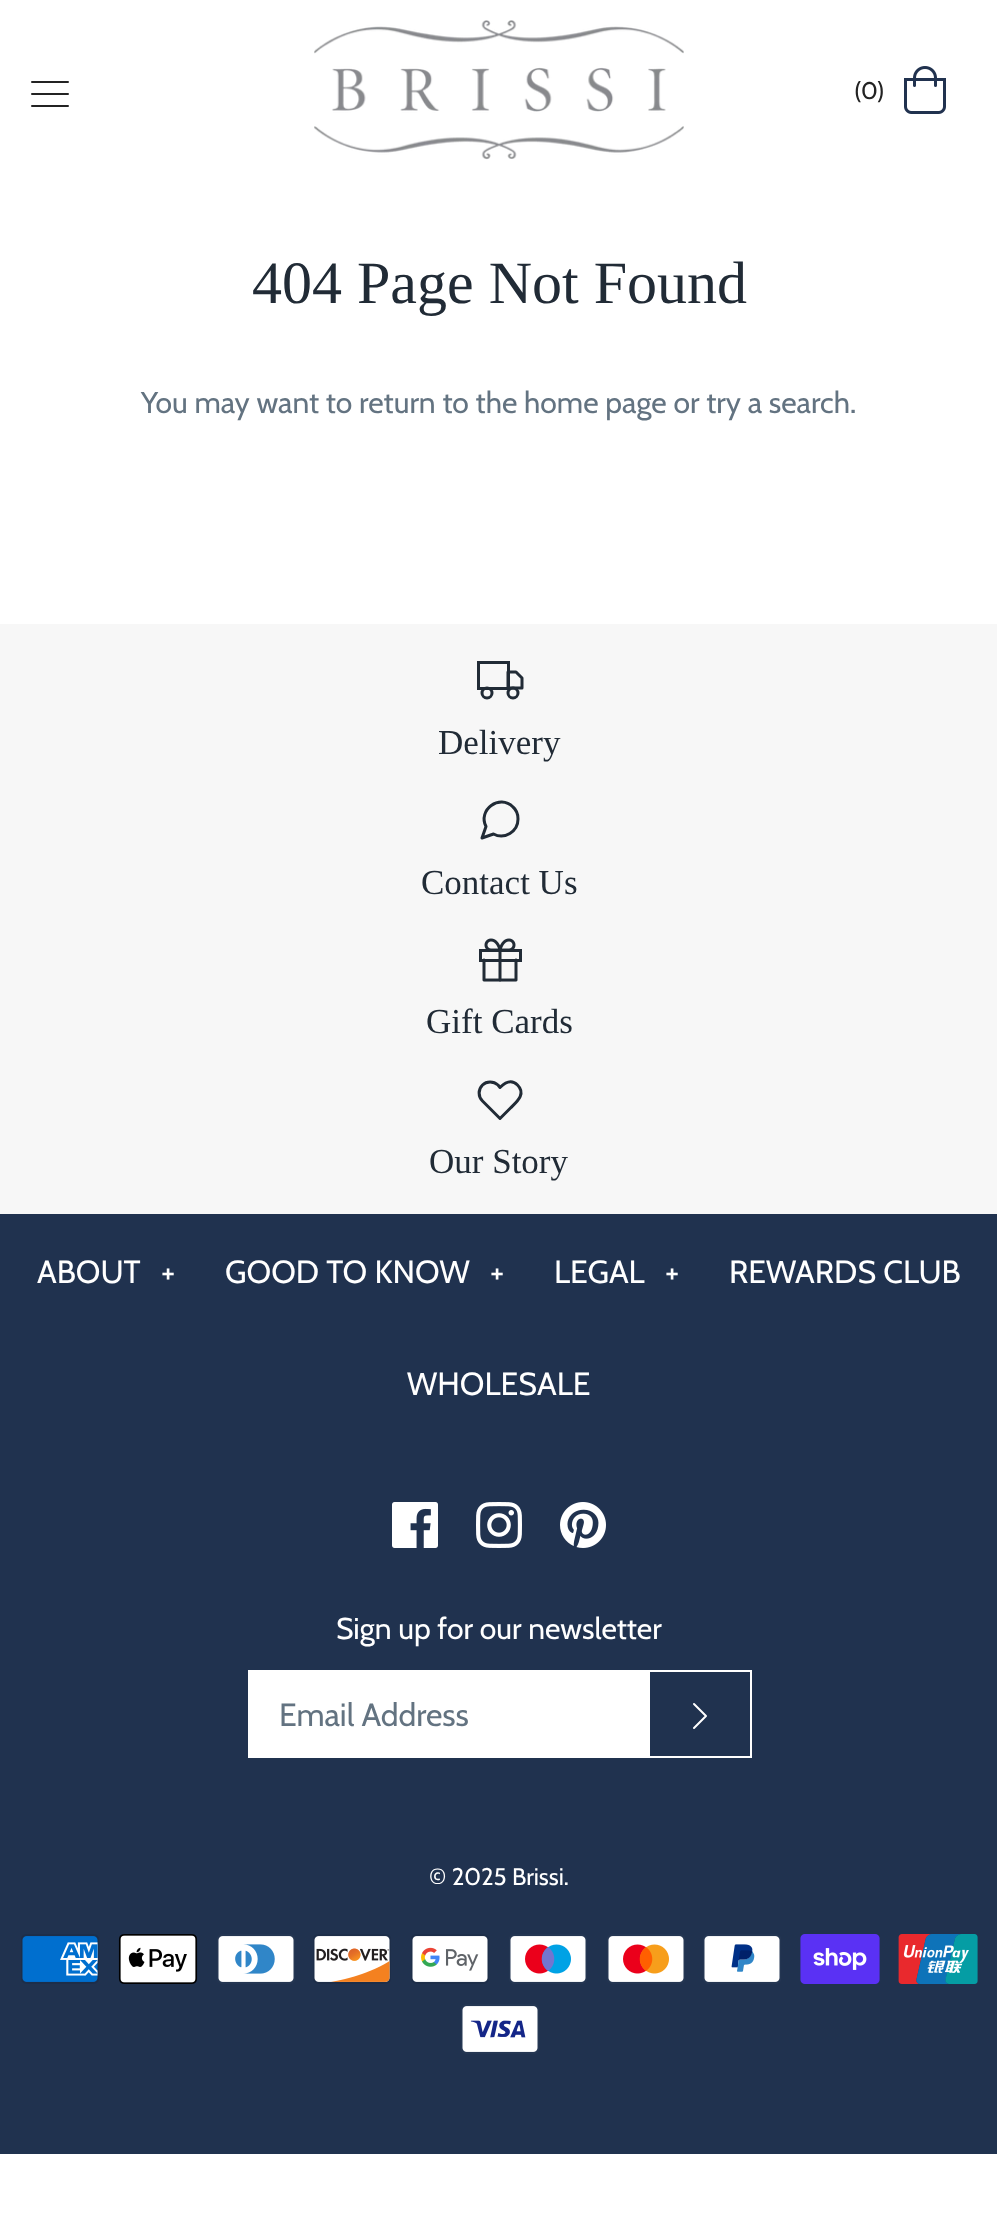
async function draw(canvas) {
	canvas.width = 997;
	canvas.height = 2216;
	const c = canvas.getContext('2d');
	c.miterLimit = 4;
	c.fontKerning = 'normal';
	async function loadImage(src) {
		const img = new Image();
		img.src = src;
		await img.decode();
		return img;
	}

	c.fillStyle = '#fff';
	c.fillRect(0, 0, 997, 2216);
	c.beginPath();
	c.moveTo(32, 94);
	c.lineTo(68, 94);
	c.moveTo(32, 82);
	c.lineTo(68, 82);
	c.moveTo(32, 106);
	c.lineTo(68, 106);
	c.strokeStyle = '#232323';
	c.lineWidth = 2;
	c.lineCap = 'round';
	c.lineJoin = 'round';
	c.stroke();
	c.drawImage(await loadImage('img1.png'), 314, 20, 370, 140);
	c.font = '24px Cabin';
	c.fillStyle = '#232323';
	c.fillText('(0)', 854, 99);
	c.drawImage(await loadImage('img2.png'), 904, 66, 42, 48);
	c.font = '60px Liberation Serif';
	c.fillStyle = '#212b36';
	c.fillText('404 Page Not Found', 252, 303);
	c.font = '30px Cabin';
	c.fillStyle = '#637381';
	c.fillText('You may want to return to the home page or try a search.', 141, 413);
	c.fillStyle = '#20324f';
	c.fillRect(0, 1214, 997, 940);
	c.fillStyle = '#f7f7f7';
	c.fillRect(0, 624, 997, 590);
	c.strokeStyle = '#212b36';
	c.lineWidth = 3;
	c.lineJoin = 'miter';
	c.strokeRect(478.5, 662.5, 30, 26);
	c.beginPath();
	c.moveTo(508, 672);
	c.lineTo(516, 672);
	c.lineTo(522, 678);
	c.lineTo(522, 688);
	c.lineTo(508, 688);
	c.closePath();
	c.lineJoin = 'round';
	c.stroke();
	c.beginPath();
	c.arc(487, 693, 5, 0, 2 * Math.PI);
	c.stroke();
	c.beginPath();
	c.arc(513, 693, 5, 0, 2 * Math.PI);
	c.stroke();
	c.font = '35px Liberation Serif';
	c.fillStyle = '#212b36';
	c.fillText('Delivery', 438, 754);
	c.beginPath();
	c.moveTo(518, 819);
	c.bezierCurveTo(518, 831.5, 504.5, 840, 493.5, 834);
	c.lineTo(482, 838);
	c.lineTo(486, 826.5);
	c.bezierCurveTo(477.5, 810, 499.5, 793.5, 513, 807);
	c.bezierCurveTo(516.5, 810, 518, 814.5, 518, 819);
	c.closePath();
	c.stroke();
	c.fillText('Contact Us', 421, 894);
	c.drawImage(await loadImage('img3.png'), 479, 938, 43, 44);
	c.fillText('Gift Cards', 426, 1033);
	c.beginPath();
	c.moveTo(517.5, 1085);
	c.bezierCurveTo(511.5, 1079, 505, 1082.5, 500, 1087.5);
	c.lineTo(498, 1085);
	c.bezierCurveTo(493.5, 1081, 486.5, 1081, 482.5, 1085);
	c.bezierCurveTo(478, 1089.5, 478, 1096.5, 482.5, 1101);
	c.lineTo(500, 1118.5);
	c.lineTo(510.5, 1108);
	c.bezierCurveTo(516.5, 1102, 526.5, 1094, 517.5, 1085);
	c.closePath();
	c.stroke();
	c.fillText('Our Story', 429, 1173);
	c.font = '32px Cabin';
	c.fillStyle = '#fff';
	for (const [text, x, y] of [
		['ABOUT', 37, 1283],
		['+', 161, 1283],
		['GOOD TO KNOW', 225, 1283],
		['+', 490, 1283],
		['LEGAL', 554, 1283],
		['+', 665, 1283],
		['REWARDS CLUB', 729, 1283],
		['WHOLESALE', 407, 1395],
	]) {
		c.fillText(text, x, y);
	}
	c.drawImage(await loadImage('img4.png'), 392, 1502, 46, 46);
	c.drawImage(await loadImage('img5.png'), 476, 1502, 46, 46);
	c.drawImage(await loadImage('img6.png'), 560, 1502, 46, 46);
	c.font = '30px Cabin';
	c.fillText('Sign up for our newsletter', 336, 1639);
	c.fillRect(248, 1670, 504, 88);
	c.font = '32px Cabin';
	c.fillStyle = '#637381';
	c.fillText('Email Address', 279, 1726);
	c.fillStyle = '#20324f';
	c.fillRect(650, 1672, 100, 84);
	c.beginPath();
	c.moveTo(694, 1728);
	c.lineTo(706, 1716);
	c.lineTo(694, 1704);
	c.strokeStyle = '#fff';
	c.lineWidth = 2;
	c.stroke();
	c.font = '24px Cabin';
	c.fillStyle = '#fff';
	c.fillText('© 2025 Brissi.', 429, 1885);
	c.drawImage(await loadImage('img7.png'), 21, 1934, 78, 50);
	c.drawImage(await loadImage('img8.png'), 118, 1934, 80, 50);
	c.drawImage(await loadImage('img9.png'), 217, 1934, 78, 50);
	c.drawImage(await loadImage('img10.png'), 313, 1934, 78, 50);
	c.drawImage(await loadImage('img11.png'), 411, 1934, 78, 50);
	c.drawImage(await loadImage('img12.png'), 509, 1934, 78, 50);
	c.drawImage(await loadImage('img13.png'), 607, 1934, 78, 50);
	c.drawImage(await loadImage('img14.png'), 703, 1934, 78, 50);
	c.drawImage(await loadImage('img15.png'), 800, 1934, 80, 50);
	c.drawImage(await loadImage('img16.png'), 898, 1934, 80, 50);
	c.drawImage(await loadImage('img17.png'), 461, 2004, 78, 50);
}

draw(document.querySelector('canvas'));
